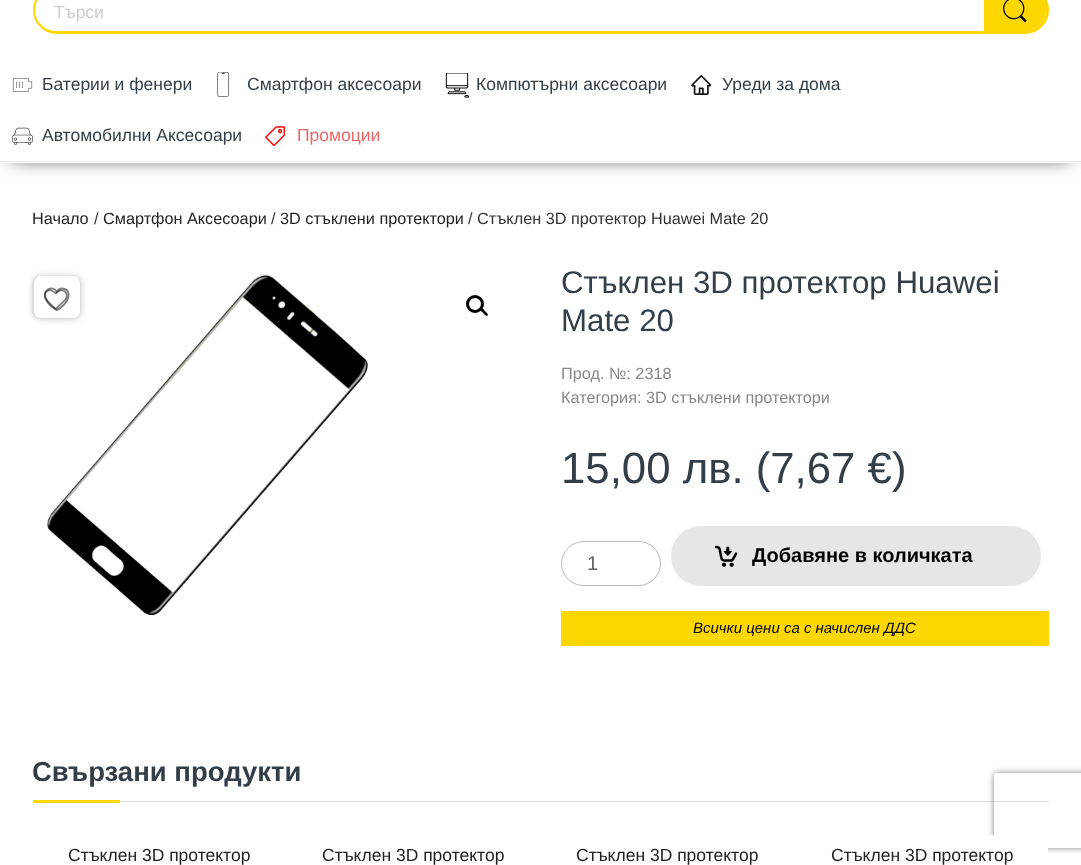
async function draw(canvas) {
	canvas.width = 1081;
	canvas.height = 865;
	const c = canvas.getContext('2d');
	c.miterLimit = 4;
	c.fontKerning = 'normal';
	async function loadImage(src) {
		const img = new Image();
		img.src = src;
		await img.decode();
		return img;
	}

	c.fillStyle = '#fff';
	c.fillRect(0, 0, 1081, 865);
	c.fillStyle = '#333';
	c.filter = 'blur(9.5px)';
	c.beginPath();
	c.rect(11, -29, 1059, 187);
	c.fill();
	c.filter = 'none';
	c.fillStyle = '#fff';
	c.fillRect(0, 0, 1081, 163);
	c.fillStyle = '#eaeaea';
	c.fillRect(0, 161, 1081, 1);
	c.beginPath();
	c.roundRect(34.5, -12.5, 1013, 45, 22.5);
	c.strokeStyle = '#fed700';
	c.lineWidth = 3;
	c.stroke();
	c.fillStyle = '#fff';
	c.beginPath();
	c.moveTo(56, -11);
	c.lineTo(984, -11);
	c.lineTo(984, 31);
	c.lineTo(56, 31);
	c.bezierCurveTo(44.5, 31, 35, 21.5, 35, 10);
	c.bezierCurveTo(35, -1.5, 44.5, -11, 56, -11);
	c.closePath();
	c.fill();
	c.font = '17.5px Liberation Sans';
	c.fillStyle = '#ccc';
	c.fillText('Търси', 54, 18);
	c.fillStyle = '#fed700';
	c.beginPath();
	c.moveTo(984, -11);
	c.lineTo(1025, -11);
	c.bezierCurveTo(1036.5, -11, 1046, -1.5, 1046, 10);
	c.bezierCurveTo(1046, 21.5, 1036.5, 31, 1025, 31);
	c.lineTo(984, 31);
	c.closePath();
	c.fill();
	c.drawImage(await loadImage('img1.png'), 1003, 0, 24, 23);
	c.drawImage(await loadImage('img2.png'), 12, 78, 21, 14);
	c.fillStyle = '#333e48';
	c.fillText('Батерии и фенери', 42, 90);
	c.drawImage(await loadImage('img3.png'), 217, 72, 13, 25);
	c.fillText('Смартфон аксесоари', 247, 90);
	c.drawImage(await loadImage('img4.png'), 445, 73, 25, 25);
	c.fillText('Компютърни аксесоари', 476, 90);
	c.drawImage(await loadImage('img5.png'), 691, 75, 20, 20);
	c.fillText('Уреди за дома', 722, 90);
	c.drawImage(await loadImage('img6.png'), 12, 127, 21, 18);
	c.fillText('Автомобилни Аксесоари', 42, 141);
	c.drawImage(await loadImage('img7.png'), 265, 126, 20, 20);
	c.fillStyle = '#e76868';
	c.fillText('Промоции', 297, 141);
	c.font = '16.25px Liberation Sans';
	c.fillStyle = '#222';
	c.fillText('Начало', 32, 224);
	c.fillStyle = '#333';
	c.fillText('/', 94, 224);
	c.fillStyle = '#222';
	c.fillText('Смартфон Аксесоари', 103, 224);
	c.fillStyle = '#333';
	c.fillText('/', 271, 224);
	c.fillStyle = '#222';
	c.fillText('3D стъклени протектори', 280, 224);
	c.fillStyle = '#333';
	c.fillText('/ Стъклен 3D протектор Huawei Mate 20', 468, 224);
	c.drawImage(await loadImage('img8.png'), 46, 272, 322, 343);
	c.beginPath();
	c.arc(475, 304, 7.5, 0, 2 * Math.PI);
	c.strokeStyle = '#000';
	c.stroke();
	c.fillStyle = '#000';
	c.beginPath();
	c.moveTo(480.5, 308.5);
	c.bezierCurveTo(482, 307, 484, 310, 485, 311);
	c.bezierCurveTo(485.5, 312, 489, 314, 487.5, 315.5);
	c.bezierCurveTo(486, 317, 484, 313.5, 483, 313);
	c.bezierCurveTo(482.5, 312, 479, 310, 480.5, 308.5);
	c.closePath();
	c.fill();
	c.fillStyle = '#c6c6c6';
	c.filter = 'blur(3px)';
	c.beginPath();
	c.roundRect(33, 276, 48, 43, 8);
	c.fill();
	c.filter = 'none';
	c.fillStyle = '#fff';
	c.beginPath();
	c.roundRect(33, 276, 48, 43, 8);
	c.fill();
	c.fillStyle = '#ddd';
	c.beginPath();
	c.moveTo(40, 276);
	c.lineTo(74, 276);
	c.bezierCurveTo(78, 276, 81, 280, 81, 284);
	c.lineTo(81, 311);
	c.bezierCurveTo(81, 315, 78, 319, 74, 319);
	c.lineTo(40, 319);
	c.bezierCurveTo(36, 319, 32, 315, 32, 311);
	c.lineTo(32, 284);
	c.bezierCurveTo(32, 280, 36, 276, 40, 276);
	c.closePath();
	c.moveTo(40, 276);
	c.lineTo(74, 276);
	c.bezierCurveTo(77, 276, 80, 280, 80, 284);
	c.lineTo(80, 311);
	c.bezierCurveTo(80, 315, 77, 318, 74, 318);
	c.lineTo(40, 318);
	c.bezierCurveTo(37, 318, 34, 315, 34, 311);
	c.lineTo(34, 284);
	c.bezierCurveTo(34, 280, 37, 276, 40, 276);
	c.closePath();
	c.fill('evenodd');
	c.drawImage(await loadImage('img9.png'), 44, 289, 24, 21);
	c.beginPath();
	c.moveTo(68.5, 294.5);
	c.bezierCurveTo(68.5, 288, 59.5, 286.5, 57, 292);
	c.bezierCurveTo(53.5, 284.5, 40.5, 289.5, 47, 301);
	c.bezierCurveTo(49, 305, 53, 308, 57, 310);
	c.bezierCurveTo(57, 310, 68.5, 304, 68.5, 294.5);
	c.closePath();
	c.strokeStyle = '#00000080';
	c.lineWidth = 2;
	c.lineCap = 'round';
	c.lineJoin = 'round';
	c.stroke();
	c.font = '31.25px Liberation Sans';
	c.fillStyle = '#333e48';
	c.fillText('Стъклен 3D протектор Huawei', 561, 293);
	c.fillText('Mate 20', 561, 331);
	c.font = '16.25px Liberation Sans';
	c.fillStyle = '#878787';
	c.fillText('Прод. №: 2318', 561, 379);
	c.fillText('Категория: 3D стъклени протектори', 561, 403);
	c.font = '43.75px Liberation Sans';
	c.fillStyle = '#333e48';
	c.fillText('15,00 лв. (7,67 €)', 561, 483);
	c.beginPath();
	c.roundRect(561.5, 541.5, 99, 44, 22);
	c.strokeStyle = '#bbb';
	c.lineWidth = 1;
	c.lineJoin = 'miter';
	c.stroke();
	c.font = '20px Liberation Sans';
	c.fillStyle = '#666';
	c.fillText('1', 587, 570);
	c.fillStyle = '#e6e6e6';
	c.beginPath();
	c.roundRect(671, 526, 370, 60, 30);
	c.fill();
	c.drawImage(await loadImage('img10.png'), 715, 545, 23, 22);
	c.font = 'bold 20px Liberation Sans';
	c.fillStyle = '#000';
	c.fillText('Добавяне в количката', 752, 562);
	c.fillStyle = '#fed700';
	c.fillRect(561, 611, 488, 35);
	c.font = 'italic 15px Liberation Sans';
	c.fillStyle = '#000';
	c.fillText('Всички цени са с начислен ДДС', 693, 633);
	c.fillStyle = '#ddd';
	c.fillRect(120, 801, 929, 1);
	c.font = 'bold 27.5px Liberation Sans';
	c.fillStyle = '#333e48';
	c.fillText('Свързани продукти', 32, 781);
	c.fillStyle = '#fed700';
	c.fillRect(33, 800, 87, 3);
	c.font = '17.5px Liberation Sans';
	c.fillStyle = '#222';
	for (const [text, x, y] of [
		['Стъклен 3D протектор', 68, 861],
		['Стъклен 3D протектор', 322, 861],
		['Стъклен 3D протектор', 576, 861],
	]) {
		c.fillText(text, x, y);
	}
	c.save();
	c.beginPath();
	c.moveTo(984, 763);
	c.lineTo(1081, 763);
	c.lineTo(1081, 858);
	c.lineTo(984, 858);
	c.closePath();
	c.moveTo(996.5, 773);
	c.lineTo(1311.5, 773);
	c.bezierCurveTo(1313, 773, 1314, 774, 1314, 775.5);
	c.lineTo(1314, 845.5);
	c.bezierCurveTo(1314, 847, 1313, 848, 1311.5, 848);
	c.lineTo(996.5, 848);
	c.bezierCurveTo(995, 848, 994, 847, 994, 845.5);
	c.lineTo(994, 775.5);
	c.bezierCurveTo(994, 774, 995, 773, 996.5, 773);
	c.closePath();
	c.clip('evenodd');
	c.fillStyle = '#808080';
	c.filter = 'blur(3px)';
	c.beginPath();
	c.roundRect(994, 773, 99, 75, 2.5);
	c.fill();
	c.filter = 'none';
	c.restore();
	c.fillStyle = '#fff';
	c.beginPath();
	c.moveTo(800, 835);
	c.lineTo(1044, 835);
	c.bezierCurveTo(1046, 835, 1048, 837, 1048, 839);
	c.lineTo(1048, 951);
	c.lineTo(796, 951);
	c.lineTo(796, 839);
	c.bezierCurveTo(796, 837, 798, 835, 800, 835);
	c.closePath();
	c.fill();
	c.fillStyle = '#222';
	c.fillText('Стъклен 3D протектор', 831, 861);
}

draw(document.querySelector('canvas'));
